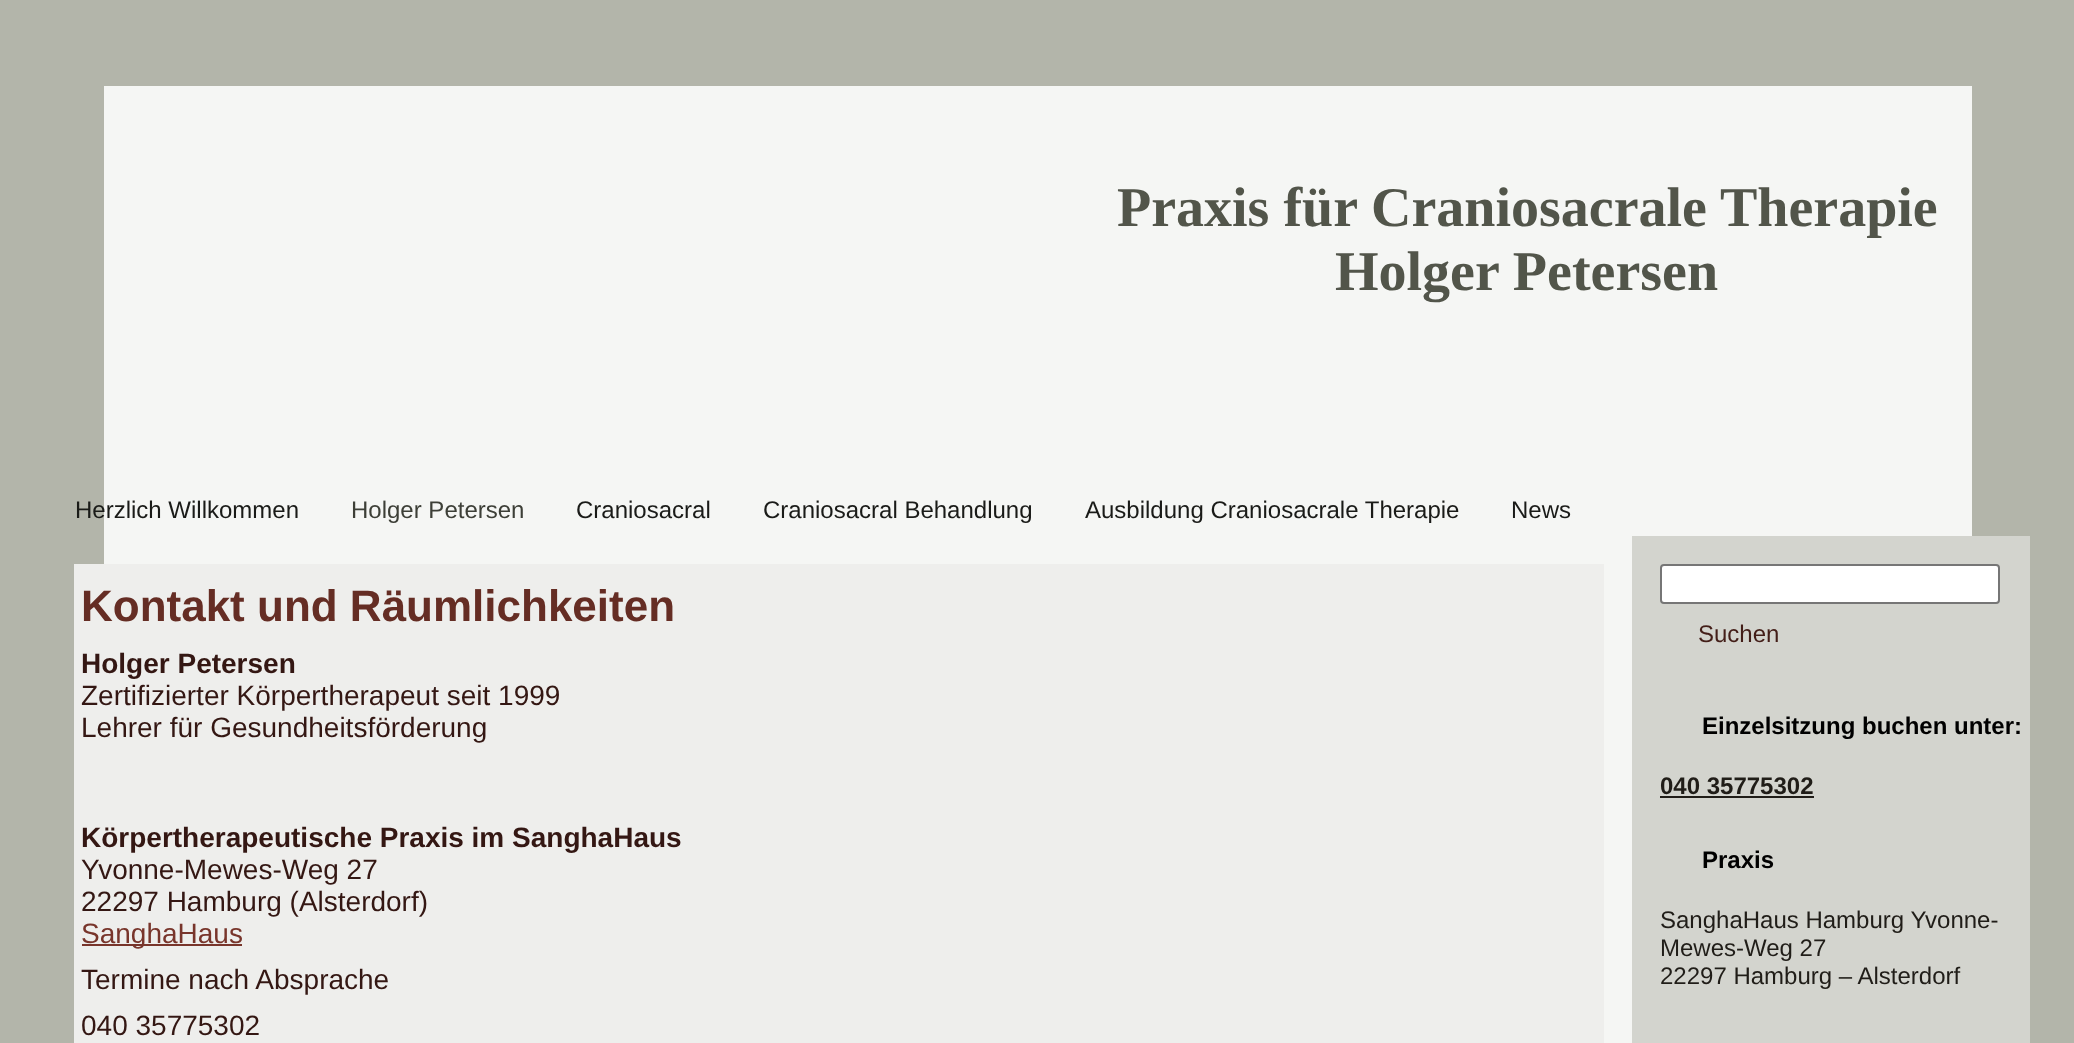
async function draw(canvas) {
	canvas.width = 2074;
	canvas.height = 1043;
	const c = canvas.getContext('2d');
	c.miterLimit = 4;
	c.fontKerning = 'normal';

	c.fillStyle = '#b3b5aa';
	c.fillRect(0, 0, 2074, 1043);
	c.fillStyle = '#f5f6f4';
	c.fillRect(104, 86, 1868, 957);
	c.font = 'bold 56px Liberation Serif';
	c.fillStyle = '#52554a';
	c.fillText('Praxis für Craniosacrale Therapie', 1117, 226);
	c.fillText('Holger Petersen', 1335, 290);
	c.font = '24px Liberation Sans';
	c.fillStyle = '#1a1b18';
	c.fillText('Herzlich Willkommen', 75, 518);
	c.fillStyle = '#3d3f37';
	c.fillText('Holger Petersen', 351, 518);
	c.fillStyle = '#1a1b18';
	for (const [text, x, y] of [
		['Craniosacral', 576, 518],
		['Craniosacral Behandlung', 763, 518],
		['Ausbildung Craniosacrale Therapie', 1085, 518],
		['News', 1511, 518],
	]) {
		c.fillText(text, x, y);
	}
	c.fillStyle = '#eeeeec';
	c.fillRect(74, 564, 1530, 479);
	c.font = 'bold 44px Liberation Sans';
	c.fillStyle = '#652d24';
	c.fillText('Kontakt und Räumlichkeiten', 81, 621);
	c.font = 'bold 28px Liberation Sans';
	c.fillStyle = '#341713';
	c.fillText('Holger Petersen', 81, 673);
	c.font = '28px Liberation Sans';
	c.fillText('Zertifizierter Körpertherapeut seit 1999', 81, 705);
	c.fillText('Lehrer für Gesundheitsförderung', 81, 737);
	c.font = 'bold 28px Liberation Sans';
	c.fillText('Körpertherapeutische Praxis im SanghaHaus', 81, 847);
	c.font = '28px Liberation Sans';
	c.fillText('Yvonne-Mewes-Weg 27', 81, 879);
	c.fillText('22297 Hamburg (Alsterdorf)', 81, 911);
	c.fillStyle = '#78352b';
	c.fillRect(82, 944, 160, 2);
	c.fillText('SanghaHaus', 81, 943);
	c.fillStyle = '#341713';
	c.fillText('Termine nach Absprache', 81, 989);
	c.fillText('040 35775302', 81, 1035);
	c.fillStyle = '#d3d4ce';
	c.fillRect(1632, 536, 398, 507);
	c.fillStyle = '#fff';
	c.beginPath();
	c.roundRect(1661, 565, 338, 38, 3);
	c.fill();
	c.strokeStyle = '#767676';
	c.lineWidth = 2;
	c.stroke();
	c.font = '24px Liberation Sans';
	c.fillStyle = '#431e18';
	c.fillText('Suchen', 1698, 642);
	c.font = 'bold 24px Liberation Sans';
	c.fillStyle = '#000';
	c.fillText('Einzelsitzung buchen unter:', 1702, 734);
	c.fillStyle = '#201d18';
	c.fillText('040 35775302', 1660, 794);
	c.fillRect(1660, 796, 154, 2);
	c.fillStyle = '#000';
	c.fillText('Praxis', 1702, 868);
	c.font = '24px Liberation Sans';
	c.fillStyle = '#201d18';
	for (const [text, x, y] of [
		['SanghaHaus Hamburg Yvonne-', 1660, 928],
		['Mewes-Weg 27', 1660, 956],
		['22297 Hamburg – Alsterdorf', 1660, 984],
	]) {
		c.fillText(text, x, y);
	}
}

draw(document.querySelector('canvas'));
